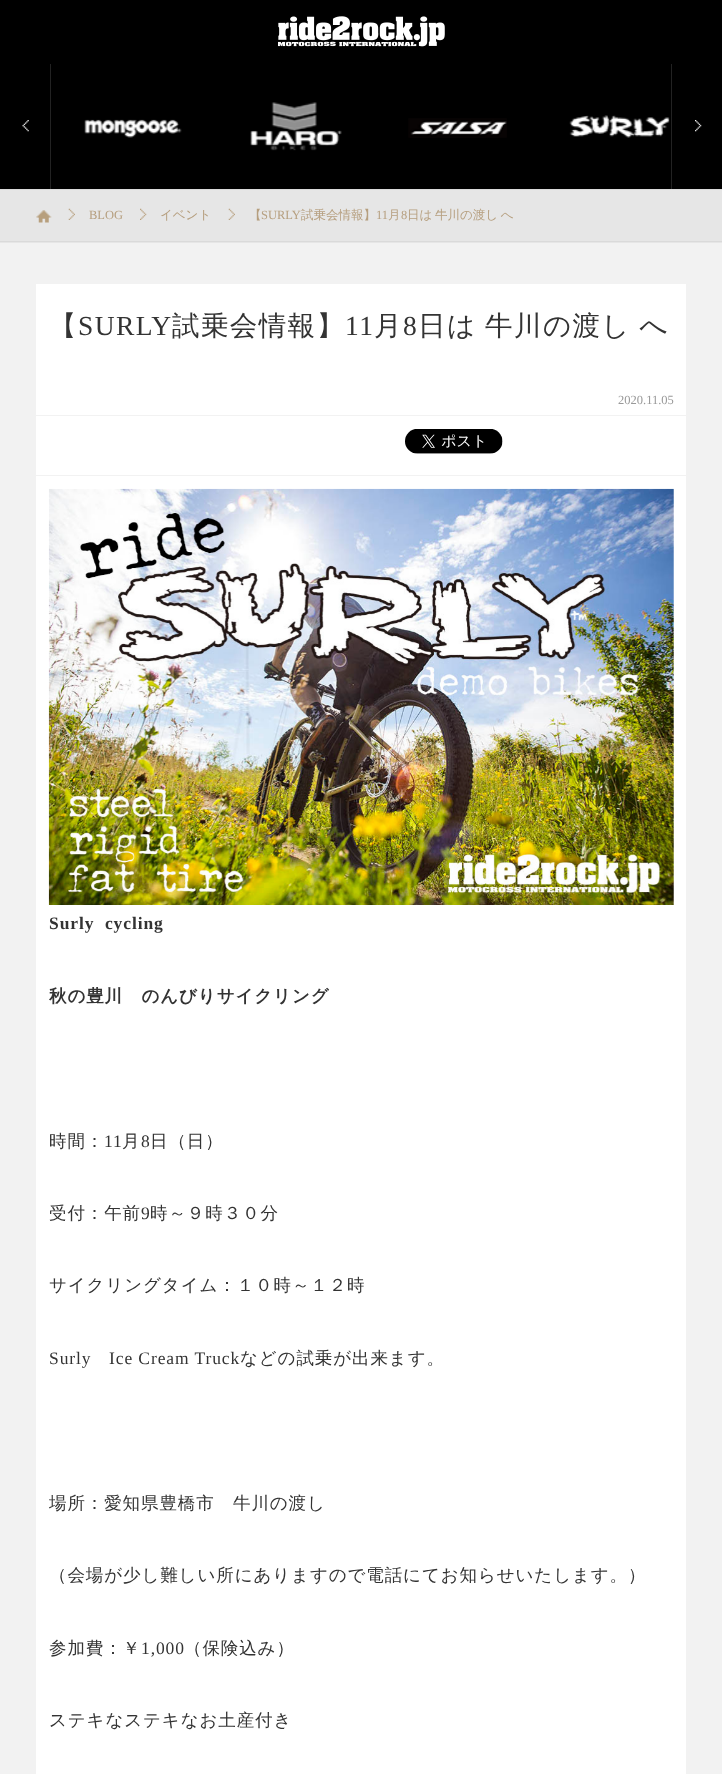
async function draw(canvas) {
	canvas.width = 722;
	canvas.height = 1774;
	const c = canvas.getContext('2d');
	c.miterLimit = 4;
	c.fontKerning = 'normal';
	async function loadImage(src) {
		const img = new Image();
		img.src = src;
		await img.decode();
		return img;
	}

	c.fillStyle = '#f2f2f2';
	c.fillRect(0, 0, 722, 1774);
	c.fillStyle = '#000';
	c.fillRect(0, 0, 722, 189);
	c.drawImage(await loadImage('img1.png'), 278, 16, 167, 31);
	c.drawImage(await loadImage('img2.png'), 22, 120, 7, 12);
	c.fillStyle = '#222';
	c.fillRect(50, 64, 1, 125);
	c.drawImage(await loadImage('img3.png'), 695, 120, 7, 12);
	c.fillRect(671, 64, 1, 125);
	c.drawImage(await loadImage('img4.png'), 84, 119, 98, 19);
	c.drawImage(await loadImage('img5.png'), 250, 102, 92, 49);
	c.drawImage(await loadImage('img6.png'), 408, 118, 99, 20);
	c.drawImage(await loadImage('img7.png'), 569, 115, 101, 23);
	for (const [x, y, w, h, color] of [
		[0, 190, 722, 53, '#e6e6e6'],
		[0, 189, 722, 1, '#dadada'],
		[0, 241, 722, 1, '#dadada'],
	]) {
		c.fillStyle = color;
		c.fillRect(x, y, w, h);
	}
	c.drawImage(await loadImage('img8.png'), 36, 210, 16, 13);
	c.drawImage(await loadImage('img9.png'), 68, 208, 7, 12);
	c.font = '12.5px Liberation Serif';
	c.fillStyle = '#b69f7f';
	c.fillText('BLOG', 89, 219);
	c.drawImage(await loadImage('img10.png'), 140, 208, 7, 12);
	c.font = '500 12.5px WenQuanYi Zen Hei';
	c.fillText('イベント', 160, 219);
	c.drawImage(await loadImage('img9.png'), 228, 208, 7, 12);
	c.fillText('【', 249, 219);
	c.font = '12.5px Liberation Serif';
	c.fillText('SURLY', 261, 219);
	c.font = '500 12.5px WenQuanYi Zen Hei';
	c.fillText('試乗会情報】', 301, 219);
	c.font = '12.5px Liberation Serif';
	c.fillText('11', 376, 219);
	c.font = '500 12.5px WenQuanYi Zen Hei';
	c.fillText('月', 388, 219);
	c.font = '12.5px Liberation Serif';
	c.fillText('8', 401, 219);
	c.wordSpacing = '-1px';
	c.font = '500 12.5px WenQuanYi Zen Hei';
	c.fillText('日は 牛川の渡し へ', 407, 219);
	c.fillStyle = '#fff';
	c.fillRect(36, 284, 650, 191);
	c.letterSpacing = '1.4px';
	c.wordSpacing = '0px';
	c.font = '500 27.5px WenQuanYi Zen Hei';
	c.fillStyle = '#333';
	c.fillText('【', 49, 335);
	c.font = '27.5px Liberation Serif';
	c.fillText('SURLY', 78, 335);
	c.font = '500 27.5px WenQuanYi Zen Hei';
	c.fillText('試乗会情報】', 172, 335);
	c.font = '27.5px Liberation Serif';
	c.fillText('11', 345, 335);
	c.font = '500 27.5px WenQuanYi Zen Hei';
	c.fillText('月', 374, 335);
	c.font = '27.5px Liberation Serif';
	c.fillText('8', 403, 335);
	c.wordSpacing = '-1px';
	c.font = '500 27.5px WenQuanYi Zen Hei';
	c.fillText('日は 牛川の渡し へ', 418, 335);
	c.fillStyle = '#f2f2f2';
	c.fillRect(36, 415, 650, 1);
	c.letterSpacing = '0px';
	c.wordSpacing = '0px';
	c.font = '12.5px Liberation Serif';
	c.fillStyle = '#999';
	c.fillText('2020.11.05', 618, 404);
	c.drawImage(await loadImage('img11.png'), 405, 429, 98, 25);
	c.fillStyle = '#fff';
	c.fillRect(36, 476, 650, 1298);
	c.drawImage(await loadImage('img12.png'), 48, 488, 626, 417);
	c.letterSpacing = '0.9px';
	c.font = 'bold 17.5px Liberation Serif';
	c.fillStyle = '#333';
	c.fillText('Surly  cycling', 49, 929);
	c.font = 'bold 17.5px WenQuanYi Zen Hei';
	c.fillText('秋の豊川　のんびりサイクリング', 49, 1002);
	c.font = '500 17.5px WenQuanYi Zen Hei';
	c.fillText('時間：', 49, 1147);
	c.font = '17.5px Liberation Serif';
	c.fillText('11', 104, 1147);
	c.font = '500 17.5px WenQuanYi Zen Hei';
	c.fillText('月', 122, 1147);
	c.font = '17.5px Liberation Serif';
	c.fillText('8', 141, 1147);
	c.font = '500 17.5px WenQuanYi Zen Hei';
	c.fillText('日（日）', 150, 1147);
	c.fillText('受付：午前', 49, 1219);
	c.font = '17.5px Liberation Serif';
	c.fillText('9', 141, 1219);
	c.font = '500 17.5px WenQuanYi Zen Hei';
	c.fillText('時～９時３０分', 150, 1219);
	c.fillText('サイクリングタイム：１０時～１２時', 49, 1291);
	c.font = '17.5px Liberation Serif';
	c.fillText('Surly', 49, 1364);
	c.fillText('Ice Cream Truck', 109, 1364);
	c.font = '500 17.5px WenQuanYi Zen Hei';
	for (const [text, x, y] of [
		['などの試乗が出来ます。', 240, 1364],
		['場所：愛知県豊橋市　牛川の渡し', 49, 1509],
		['（会場が少し難しい所にありますので電話にてお知らせいたします。）', 49, 1581],
		['参加費：￥', 49, 1654],
	]) {
		c.fillText(text, x, y);
	}
	c.font = '17.5px Liberation Serif';
	c.fillText('1,000', 141, 1654);
	c.font = '500 17.5px WenQuanYi Zen Hei';
	c.fillText('（保険込み）', 184, 1654);
	c.fillText('ステキなステキなお土産付き', 49, 1726);
}

draw(document.querySelector('canvas'));
